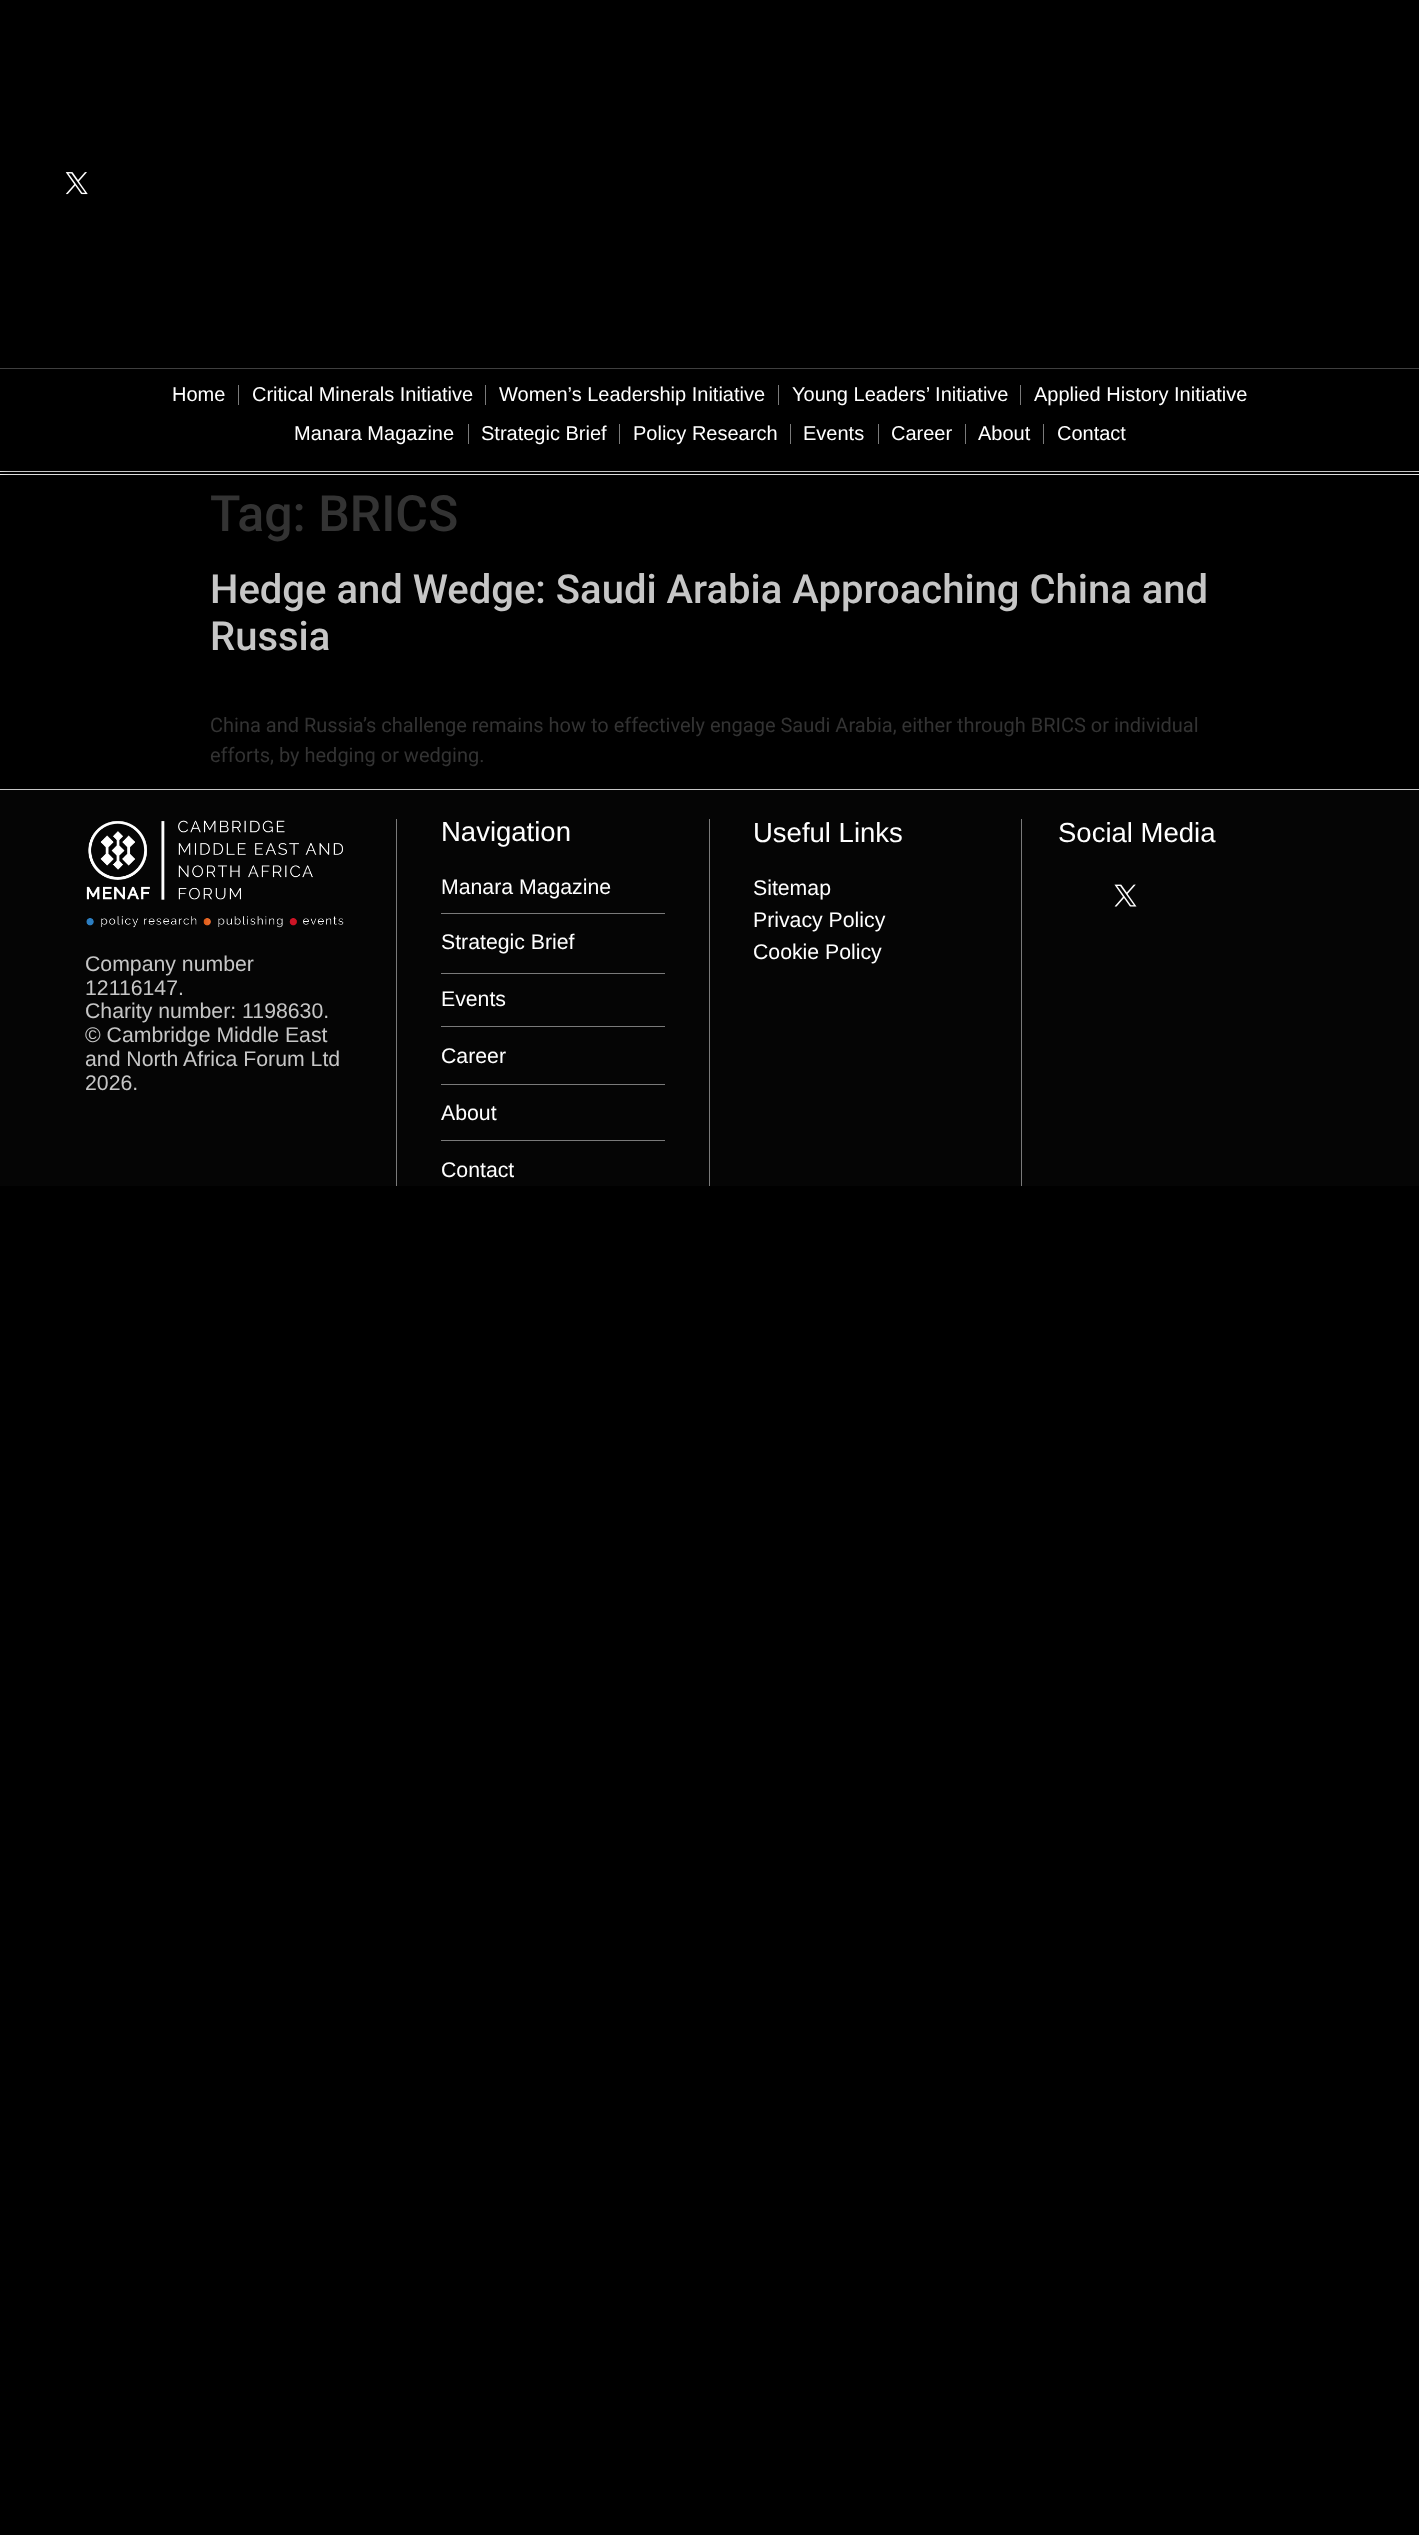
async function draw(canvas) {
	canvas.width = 1419;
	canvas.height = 2535;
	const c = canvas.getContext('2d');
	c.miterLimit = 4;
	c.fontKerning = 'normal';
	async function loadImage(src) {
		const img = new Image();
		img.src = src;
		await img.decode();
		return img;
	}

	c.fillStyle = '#000';
	c.fillRect(0, 0, 1419, 2535);
	c.fillStyle = '#fff';
	c.fillRect(0, 471, 1419, 1);
	c.fillRect(0, 474, 1419, 1);
	c.save();
	c.beginPath();
	c.moveTo(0, 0);
	c.lineTo(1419, 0);
	c.lineTo(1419, 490);
	c.lineTo(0, 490);
	c.closePath();
	c.moveTo(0, 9);
	c.lineTo(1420, 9);
	c.lineTo(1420, 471);
	c.lineTo(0, 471);
	c.closePath();
	c.clip('evenodd');
	c.fillStyle = '#00000080';
	c.filter = 'blur(6px)';
	c.beginPath();
	c.rect(0, 9, 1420, 462);
	c.fill();
	c.filter = 'none';
	c.restore();
	c.drawImage(await loadImage('img1.png'), 65, 172, 23, 23);
	c.fillStyle = '#3f3f3f';
	c.fillRect(0, 368, 1419, 1);
	c.font = '20px Liberation Sans';
	c.fillStyle = '#fff';
	c.fillText('Home', 172, 401);
	c.fillStyle = '#7a7a7a';
	c.fillRect(238, 385, 1, 20);
	c.fillStyle = '#fff';
	c.fillText('Critical Minerals Initiative', 252, 401);
	c.fillStyle = '#7a7a7a';
	c.fillRect(485, 385, 1, 20);
	c.fillStyle = '#fff';
	c.fillText('Women’s Leadership Initiative', 499, 401);
	c.fillStyle = '#7a7a7a';
	c.fillRect(778, 385, 1, 20);
	c.fillStyle = '#fff';
	c.fillText('Young Leaders’ Initiative', 792, 401);
	c.fillStyle = '#7a7a7a';
	c.fillRect(1020, 385, 1, 20);
	c.fillStyle = '#fff';
	c.fillText('Applied History Initiative', 1034, 401);
	c.fillText('Manara Magazine', 294, 440);
	c.fillStyle = '#7a7a7a';
	c.fillRect(468, 424, 1, 20);
	c.fillStyle = '#fff';
	c.fillText('Strategic Brief', 481, 440);
	c.fillStyle = '#7a7a7a';
	c.fillRect(619, 424, 1, 20);
	c.fillStyle = '#fff';
	c.fillText('Policy Research', 633, 440);
	c.fillStyle = '#7a7a7a';
	c.fillRect(790, 424, 1, 20);
	c.fillStyle = '#fff';
	c.fillText('Events', 803, 440);
	c.fillStyle = '#7a7a7a';
	c.fillRect(878, 424, 1, 20);
	c.fillStyle = '#fff';
	c.fillText('Career', 891, 440);
	c.fillStyle = '#7a7a7a';
	c.fillRect(965, 424, 1, 20);
	c.fillStyle = '#fff';
	c.fillText('About', 978, 440);
	c.fillStyle = '#7a7a7a';
	c.fillRect(1043, 424, 1, 20);
	c.fillStyle = '#fff';
	c.fillText('Contact', 1057, 440);
	c.font = '500 50px Roboto';
	c.fillStyle = '#333';
	c.fillText('Tag: BRICS', 210, 531);
	c.font = '500 40px Roboto';
	c.fillStyle = '#c6c6c6';
	c.fillText('Hedge and Wedge: Saudi Arabia Approaching China and', 210, 603);
	c.fillText('Russia', 210, 650);
	c.font = '20px Roboto';
	c.fillStyle = '#333';
	c.fillText('China and Russia’s challenge remains how to effectively engage Saudi Arabia, either through BRICS or individual', 210, 732);
	c.fillText('efforts, by hedging or wedging.', 210, 762);
	for (const [x, y, w, h, color] of [
		[0, 789, 1419, 1, '#c6c6c6'],
		[0, 790, 1419, 396, '#050505'],
		[709, 819, 1, 367, '#7a7a7a'],
	]) {
		c.fillStyle = color;
		c.fillRect(x, y, w, h);
	}
	c.font = '27.5px Liberation Sans';
	c.fillStyle = '#fff';
	c.fillText('Navigation', 441, 841);
	c.font = '21.25px Liberation Sans';
	c.fillText('Manara Magazine', 441, 894);
	c.fillStyle = '#7a7a7a';
	c.fillRect(441, 913, 224, 1);
	c.fillStyle = '#fff';
	c.fillText('Strategic Brief', 441, 949);
	c.fillStyle = '#7a7a7a';
	c.fillRect(441, 973, 224, 1);
	c.fillStyle = '#fff';
	c.fillText('Events', 441, 1006);
	c.fillStyle = '#7a7a7a';
	c.fillRect(441, 1026, 224, 1);
	c.fillStyle = '#fff';
	c.fillText('Career', 441, 1063);
	c.fillStyle = '#7a7a7a';
	c.fillRect(441, 1084, 224, 1);
	c.fillStyle = '#fff';
	c.fillText('About', 441, 1120);
	c.fillStyle = '#7a7a7a';
	c.fillRect(441, 1140, 224, 1);
	c.fillStyle = '#fff';
	c.fillText('Contact', 441, 1177);
	c.fillStyle = '#7a7a7a';
	c.fillRect(1021, 819, 1, 367);
	c.font = '27.5px Liberation Sans';
	c.fillStyle = '#fff';
	c.fillText('Useful Links', 753, 842);
	c.font = '21.25px Liberation Sans';
	for (const [text, x, y] of [
		['Sitemap', 753, 895],
		['Privacy Policy', 753, 927],
		['Cookie Policy', 753, 959],
	]) {
		c.fillText(text, x, y);
	}
	c.font = '27.5px Liberation Sans';
	c.fillText('Social Media', 1058, 842);
	c.drawImage(await loadImage('img2.png'), 1114, 884, 23, 23);
	c.fillStyle = '#7a7a7a';
	c.fillRect(396, 819, 1, 367);
	c.drawImage(await loadImage('img3.png'), 86, 820, 258, 108);
	c.font = '21.25px Liberation Sans';
	c.fillStyle = '#c6c6c6';
	for (const [text, x, y] of [
		['Company number', 85, 971],
		['12116147.', 85, 995],
		['Charity number: 1198630.', 85, 1018],
		['© Cambridge Middle East', 85, 1042],
		['and North Africa Forum Ltd', 85, 1066],
		['2026.', 85, 1090],
	]) {
		c.fillText(text, x, y);
	}
}

draw(document.querySelector('canvas'));
